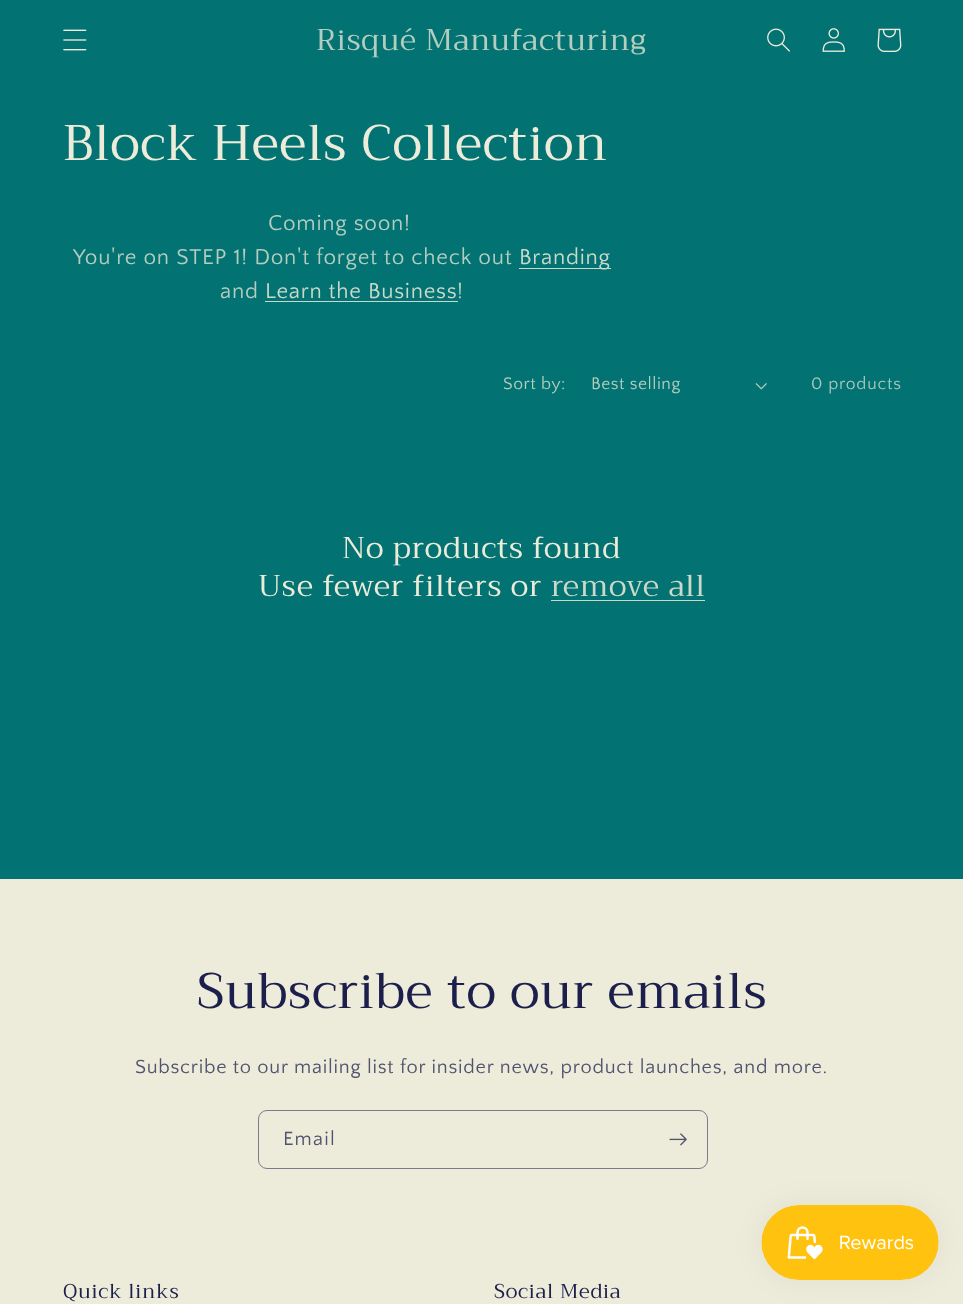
async function draw(canvas) {
	canvas.width = 963;
	canvas.height = 1304;
	const c = canvas.getContext('2d');
	c.miterLimit = 4;
	c.fontKerning = 'normal';
	async function loadImage(src) {
		const img = new Image();
		img.src = src;
		await img.decode();
		return img;
	}

	c.fillStyle = '#037272';
	c.fillRect(0, 0, 963, 1304);
	c.drawImage(await loadImage('img1.png'), 63, 29, 24, 22);
	c.letterSpacing = '0.75px';
	c.font = '30px Trirong';
	c.fillStyle = '#b3cdbf';
	c.fillText('Risqué Manufacturing', 316, 50);
	c.drawImage(await loadImage('img2.png'), 767, 28, 23, 24);
	c.drawImage(await loadImage('img3.png'), 822, 28, 23, 24);
	c.drawImage(await loadImage('img4.png'), 877, 28, 25, 24);
	c.font = '50px Trirong';
	c.fillStyle = '#edebd9';
	c.fillText('Block Heels Collection', 63, 160);
	c.font = '22.5px Quattrocento Sans';
	c.fillStyle = '#b3cdbf';
	c.fillText('Coming soon!', 268, 230);
	c.fillText('You\'re on STEP 1! Don\'t forget to check out', 73, 264);
	c.fillStyle = '#cad9ca';
	c.fillRect(519, 268, 92, 1);
	c.fillText('Branding', 519, 264);
	c.fillStyle = '#b3cdbf';
	c.fillText('and', 220, 298);
	c.fillStyle = '#cad9ca';
	c.fillText('Learn the Business', 265, 298);
	c.fillRect(265, 301, 193, 1);
	c.fillStyle = '#b3cdbf';
	c.fillText('!', 457, 298);
	c.letterSpacing = '0.5px';
	c.font = '17.5px Quattrocento Sans';
	c.fillText('Sort by:', 503, 389);
	c.fillText('Best selling', 591, 389);
	c.drawImage(await loadImage('img5.png'), 755, 383, 12, 7);
	c.letterSpacing = '0.75px';
	c.fillStyle = '#a7c7ba';
	c.fillText('0 products', 811, 389);
	c.font = '30px Trirong';
	c.fillStyle = '#edebd9';
	c.fillText('No products found', 342, 558);
	c.fillText('Use fewer filters or', 258, 596);
	c.fillStyle = '#cad9ca';
	c.fillText('remove all', 551, 596);
	c.fillRect(551, 600, 154, 1);
	c.fillStyle = '#edebd9';
	c.fillRect(0, 879, 963, 425);
	c.font = '50px Trirong';
	c.fillStyle = '#1c1f4c';
	c.fillText('Subscribe to our emails', 197, 1008);
	c.font = '20px Quattrocento Sans';
	c.fillStyle = '#50526f';
	c.fillText('Subscribe to our mailing list for insider news, product launches, and more.', 135, 1073);
	c.beginPath();
	c.roundRect(258.5, 1110.5, 449, 58, 8.5);
	c.strokeStyle = '#7a7b8b';
	c.stroke();
	c.letterSpacing = '1.25px';
	c.fillText('Email', 283, 1145);
	c.drawImage(await loadImage('img6.png'), 669, 1133, 18, 13);
	c.letterSpacing = '0.75px';
	c.font = '20px Trirong';
	c.fillStyle = '#1c1f4c';
	c.fillText('Quick links', 63, 1298);
	c.fillText('Social Media', 494, 1298);
	c.fillStyle = '#0000000d';
	c.filter = 'blur(15.5px)';
	c.beginPath();
	c.roundRect(761, 1205, 178, 75, 37.5);
	c.fill();
	c.filter = 'none';
	c.drawImage(await loadImage('img7.png'), 761, 1205, 178, 75);
}

draw(document.querySelector('canvas'));
